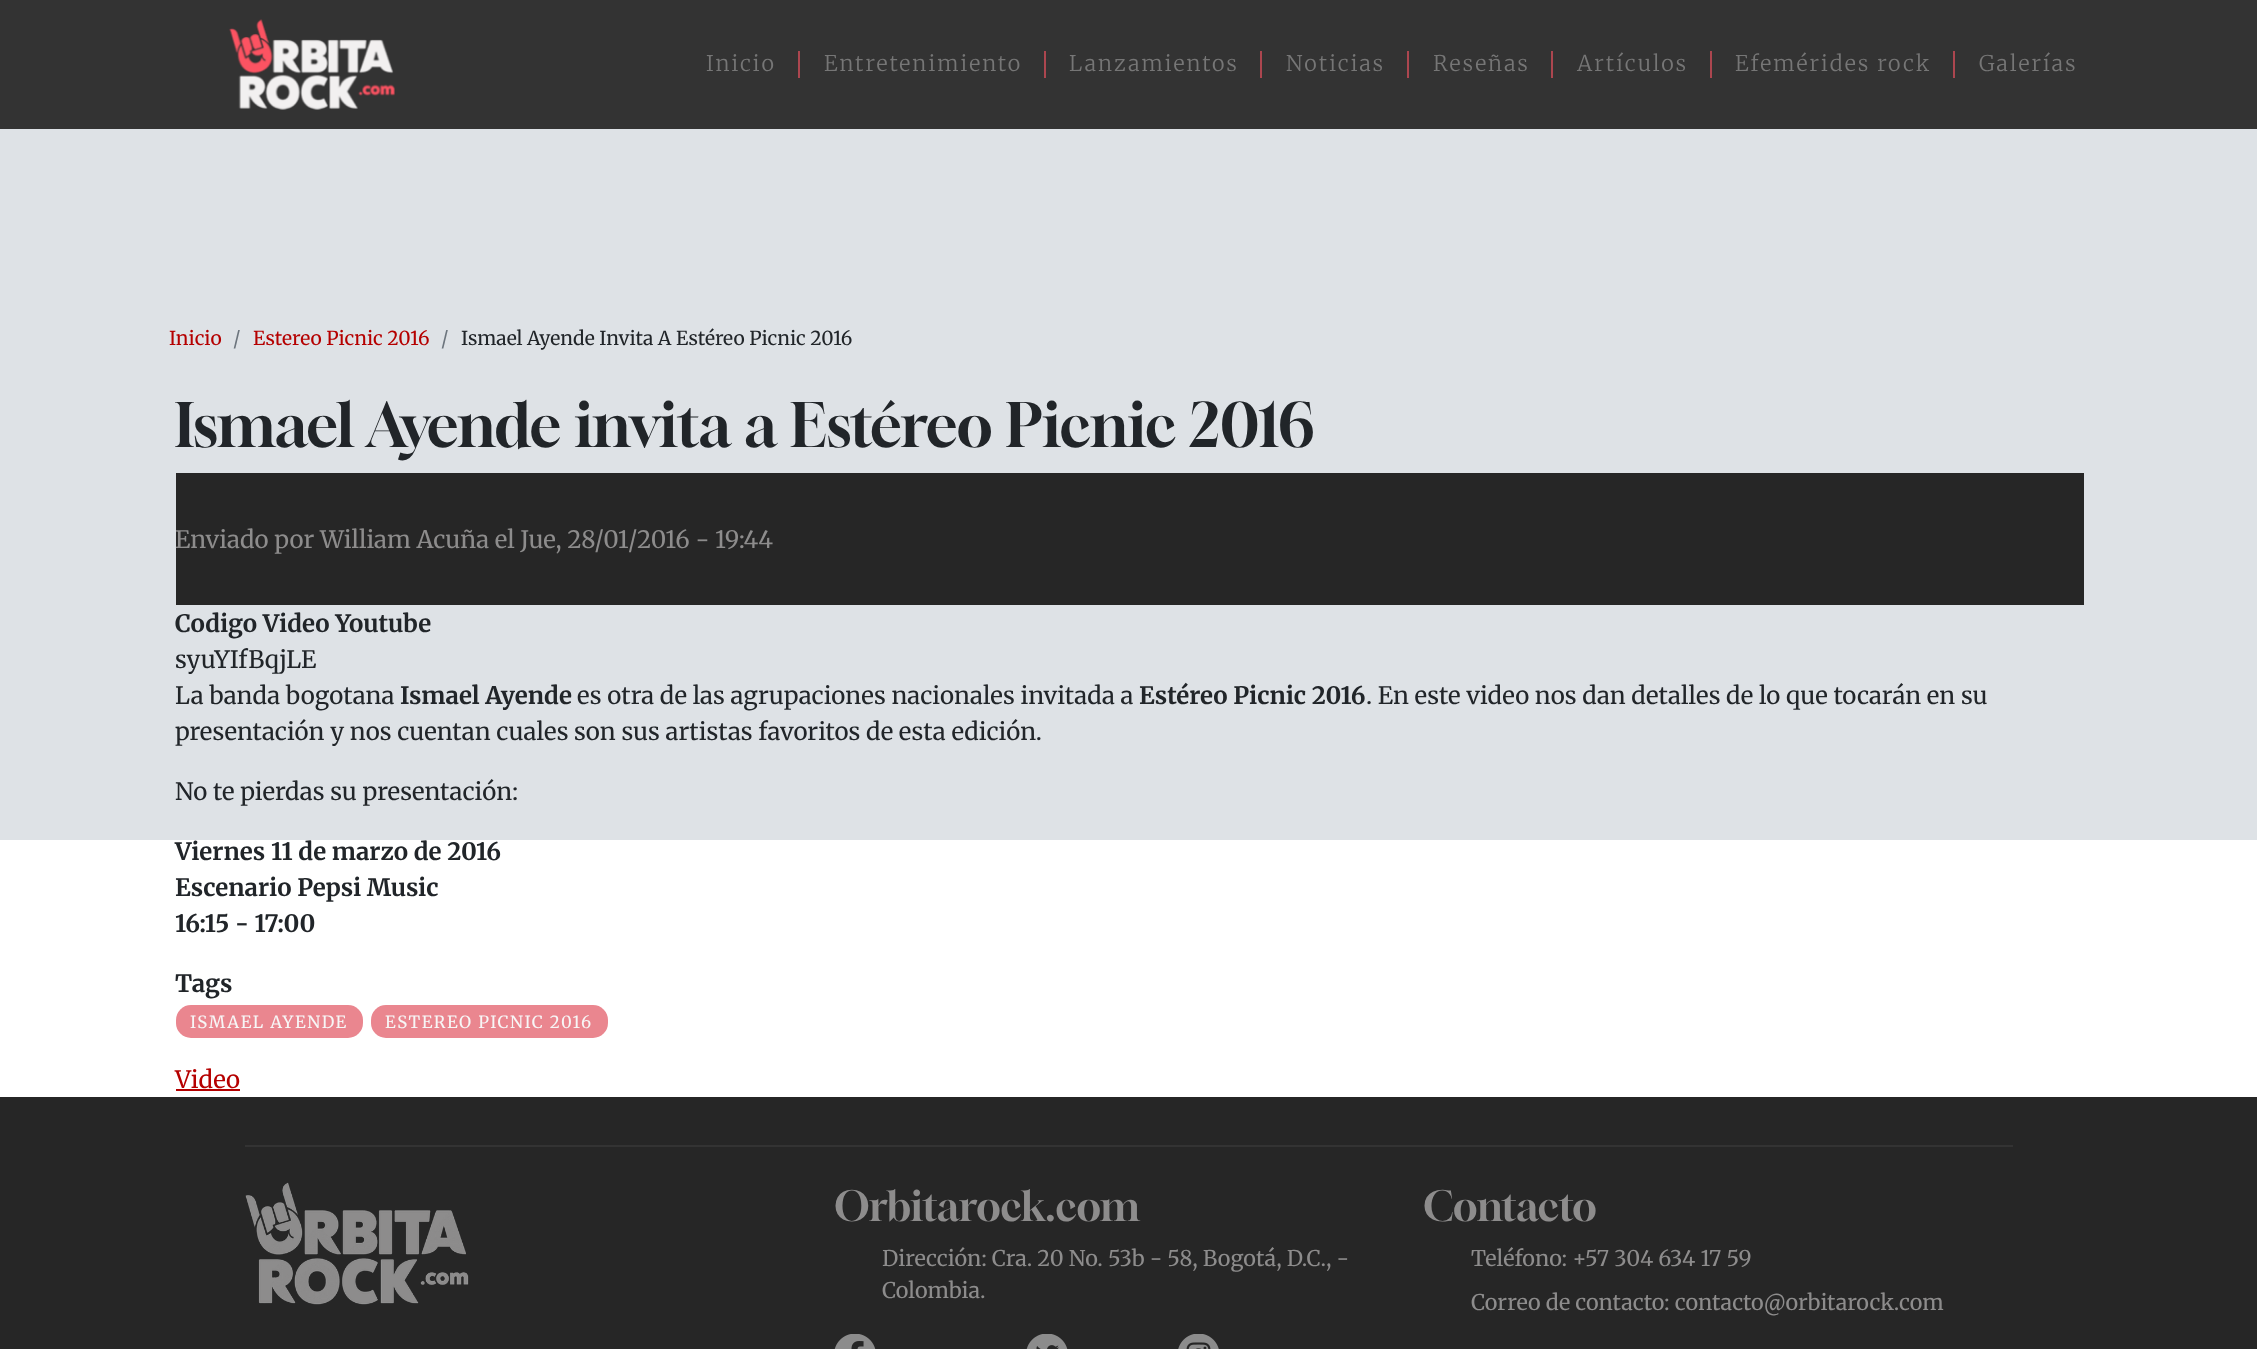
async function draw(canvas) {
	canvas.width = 2257;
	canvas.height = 1349;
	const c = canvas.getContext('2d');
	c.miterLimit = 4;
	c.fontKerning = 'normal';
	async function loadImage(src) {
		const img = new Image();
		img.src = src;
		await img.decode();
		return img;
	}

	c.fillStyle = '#fff';
	c.fillRect(0, 0, 2257, 1349);
	c.fillStyle = '#333';
	c.fillRect(0, 0, 2257, 129);
	c.drawImage(await loadImage('img1.png'), 229, 19, 166, 91);
	c.letterSpacing = '2px';
	c.font = '300 21.6px Merriweather';
	c.fillStyle = '#767676';
	c.fillText('Inicio', 706, 71);
	c.fillStyle = '#ac464f';
	c.fillRect(798, 51, 2, 27);
	c.fillStyle = '#767676';
	c.fillText('Entretenimiento', 824, 71);
	c.fillStyle = '#ac464f';
	c.fillRect(1044, 51, 2, 27);
	c.fillStyle = '#767676';
	c.fillText('Lanzamientos', 1069, 71);
	c.fillStyle = '#ac464f';
	c.fillRect(1260, 51, 2, 27);
	c.fillStyle = '#767676';
	c.fillText('Noticias', 1286, 71);
	c.fillStyle = '#ac464f';
	c.fillRect(1407, 51, 2, 27);
	c.fillStyle = '#767676';
	c.fillText('Reseñas', 1433, 71);
	c.fillStyle = '#ac464f';
	c.fillRect(1551, 51, 2, 27);
	c.fillStyle = '#767676';
	c.fillText('Artículos', 1577, 71);
	c.fillStyle = '#ac464f';
	c.fillRect(1710, 51, 2, 27);
	c.fillStyle = '#767676';
	c.fillText('Efemérides rock', 1735, 71);
	c.fillStyle = '#ac464f';
	c.fillRect(1953, 51, 2, 27);
	c.fillStyle = '#767676';
	c.fillText('Galerías', 1979, 71);
	c.fillStyle = '#dee2e6';
	c.fillRect(0, 129, 2257, 711);
	c.letterSpacing = '0px';
	c.font = '19.2px Merriweather';
	c.fillStyle = '#b50000';
	c.fillText('Inicio', 169, 345);
	c.fillStyle = '#6c757d';
	c.fillText('/', 233, 345);
	c.fillStyle = '#b50000';
	c.fillText('Estereo Picnic 2016', 253, 345);
	c.fillStyle = '#6c757d';
	c.fillText('/', 441, 345);
	c.fillStyle = '#212529';
	c.fillText('Ismael Ayende Invita A Estéreo Picnic 2016', 461, 345);
	c.font = '60px Gloock';
	c.fillText('Ismael Ayende invita a Estéreo Picnic 2016', 175, 447);
	c.fillStyle = '#262626';
	c.fillRect(176, 473, 1908, 132);
	c.font = '24px Merriweather';
	c.fillStyle = '#8d8c8c';
	c.fillText('Enviado por William Acuña el Jue, 28/01/2016 - 19:44', 175, 548);
	c.font = 'bold 24px Merriweather';
	c.fillStyle = '#212529';
	c.fillText('Codigo Video Youtube', 175, 632);
	c.font = '24px Merriweather';
	c.fillText('syuYIfBqjLE', 175, 668);
	c.fillText('La banda bogotana', 175, 704);
	c.font = 'bold 24px Merriweather';
	c.fillText('Ismael Ayende', 400, 704);
	c.font = '24px Merriweather';
	c.fillText('es otra de las agrupaciones nacionales invitada a', 577, 704);
	c.font = 'bold 24px Merriweather';
	c.fillText('Estéreo Picnic 2016', 1139, 704);
	c.font = '24px Merriweather';
	for (const [text, x, y] of [
		['. En este video nos dan detalles de lo que tocarán en su', 1366, 704],
		['presentación y nos cuentan cuales son sus artistas favoritos de esta edición.', 175, 740],
		['No te pierdas su presentación:', 175, 800],
	]) {
		c.fillText(text, x, y);
	}
	c.font = 'bold 24px Merriweather';
	for (const [text, x, y] of [
		['Viernes 11 de marzo de 2016', 175, 860],
		['Escenario Pepsi Music', 175, 896],
		['16:15 - 17:00', 175, 932],
		['Tags', 175, 992],
	]) {
		c.fillText(text, x, y);
	}
	c.fillStyle = '#ea868f';
	c.beginPath();
	c.roundRect(176, 1005, 187, 33, 15);
	c.fill();
	c.letterSpacing = '1.5px';
	c.font = '16.75px Merriweather';
	c.fillStyle = '#f7f6f6';
	c.fillText('ISMAEL AYENDE', 190, 1028);
	c.fillStyle = '#ea868f';
	c.beginPath();
	c.roundRect(371, 1005, 237, 33, 15);
	c.fill();
	c.fillStyle = '#f7f6f6';
	c.fillText('ESTEREO PICNIC 2016', 385, 1028);
	c.letterSpacing = '0px';
	c.font = '24px Merriweather';
	c.fillStyle = '#b50000';
	c.fillText('Video', 175, 1088);
	for (const [x, y, w, h, color] of [
		[176, 1089, 64, 2, '#b50000'],
		[0, 1097, 2257, 252, '#262626'],
		[245, 1145, 1768, 2, '#333'],
	]) {
		c.fillStyle = color;
		c.fillRect(x, y, w, h);
	}
	c.drawImage(await loadImage('img2.png'), 245, 1182, 224, 123);
	c.font = '40.75px Gloock';
	c.fillStyle = '#8d8c8c';
	c.fillText('Orbitarock.com', 834, 1221);
	c.font = '21.6px Merriweather';
	c.fillText('Dirección: Cra. 20 No. 53b - 58, Bogotá, D.C., -', 882, 1266);
	c.fillText('Colombia.', 882, 1298);
	c.drawImage(await loadImage('img3.png'), 834, 1334, 42, 15);
	c.drawImage(await loadImage('img4.png'), 1026, 1334, 42, 15);
	c.drawImage(await loadImage('img5.png'), 1178, 1334, 41, 15);
	c.font = '40.75px Gloock';
	c.fillText('Contacto', 1423, 1221);
	c.font = '21.6px Merriweather';
	c.fillText('Teléfono: +57 304 634 17 59', 1471, 1266);
	c.fillText('Correo de contacto: contacto@orbitarock.com', 1471, 1310);
}

draw(document.querySelector('canvas'));
